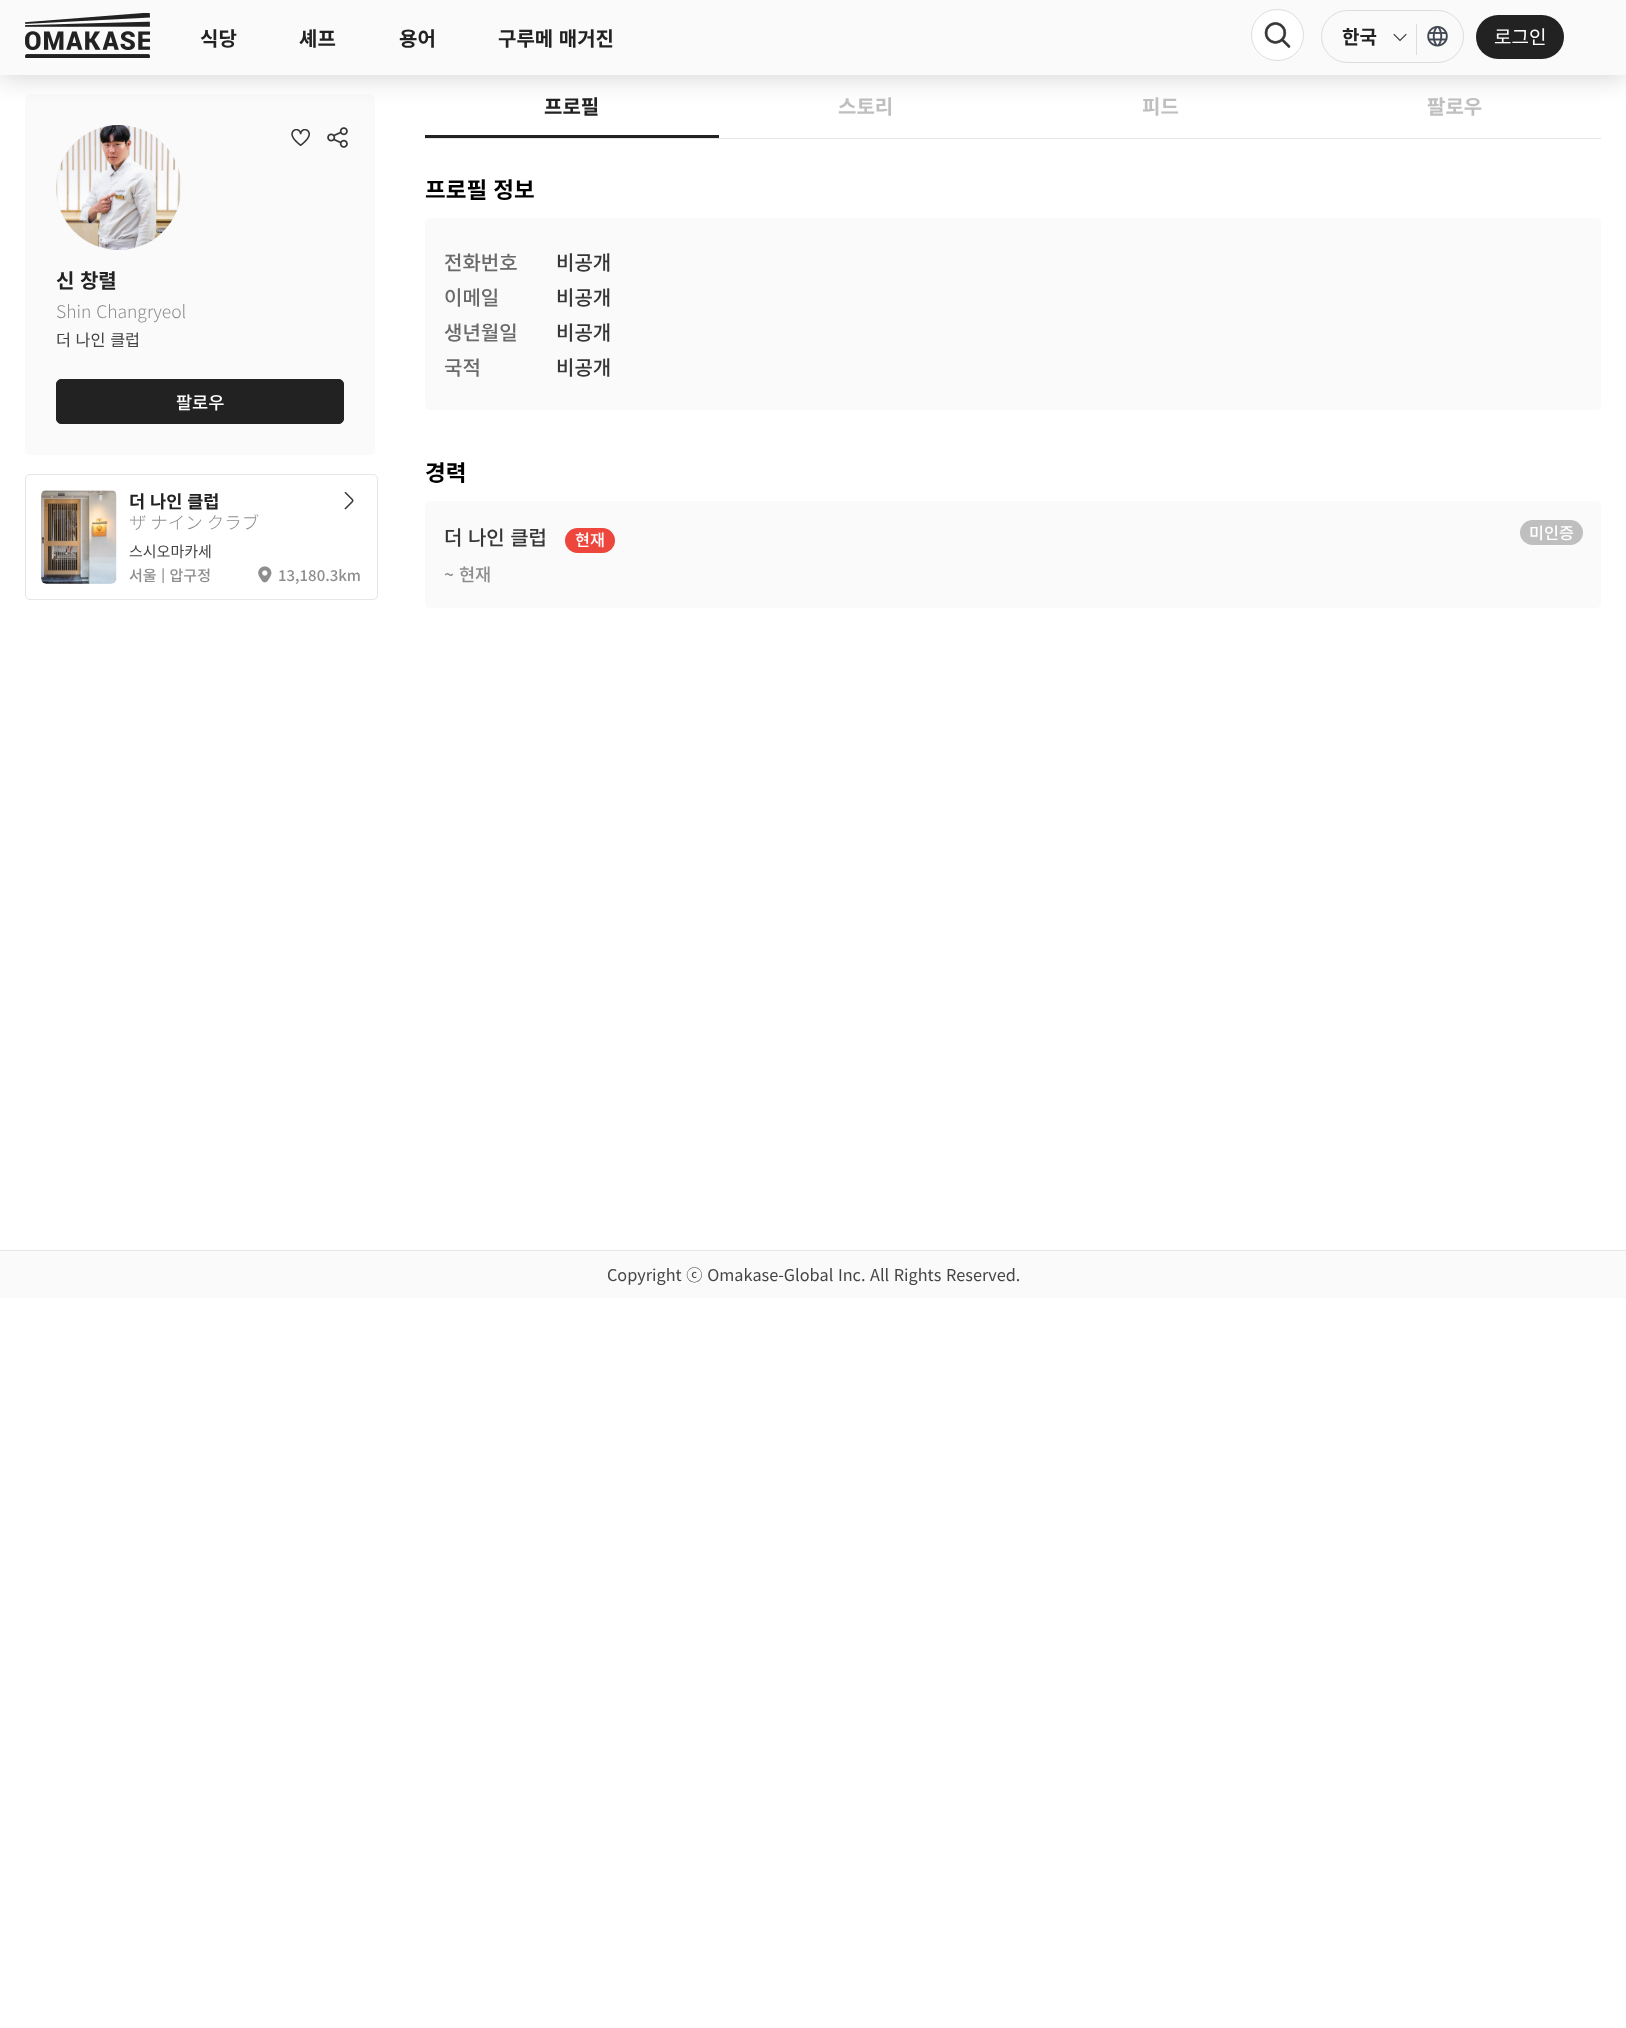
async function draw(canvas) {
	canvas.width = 1626;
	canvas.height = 2028;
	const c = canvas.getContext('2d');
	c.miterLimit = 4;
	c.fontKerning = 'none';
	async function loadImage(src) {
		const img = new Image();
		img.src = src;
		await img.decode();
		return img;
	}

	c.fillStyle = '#fff';
	c.fillRect(0, 0, 1626, 2028);
	c.fillStyle = '#fafafa';
	c.beginPath();
	c.roundRect(25, 94, 350, 361, 5);
	c.fill();
	c.fillStyle = '#00000026';
	c.filter = 'blur(12.5px)';
	c.beginPath();
	c.rect(0, 4, 1626, 75);
	c.fill();
	c.filter = 'none';
	c.fillStyle = '#fafafa';
	c.fillRect(0, 0, 1626, 75);
	c.drawImage(await loadImage('img1.png'), 25, 13, 125, 45);
	c.font = 'bold 20px Noto Sans KR';
	c.fillStyle = '#222';
	for (const [text, x, y] of [
		['식당', 200, 46],
		['셰프', 299, 46],
		['용어', 399, 46],
	]) {
		c.fillText(text, x, y);
	}
	c.wordSpacing = '1px';
	c.fillText('구루메 매거진', 498, 46);
	c.fillStyle = '#fff';
	c.beginPath();
	c.roundRect(1251, 9, 53, 52, 26);
	c.fill();
	c.drawImage(await loadImage('img2.png'), 1264, 22, 27, 26);
	c.beginPath();
	c.roundRect(1251.5, 9.5, 52, 51, 25.5);
	c.strokeStyle = '#ddd';
	c.stroke();
	c.beginPath();
	c.roundRect(1321.5, 10.5, 142, 52, 26);
	c.stroke();
	c.drawImage(await loadImage('img3.png'), 1393, 33, 14, 9);
	c.wordSpacing = '0px';
	c.font = 'bold 19px Noto Sans KR';
	c.fillStyle = '#222';
	c.fillText('한국', 1342, 44);
	c.fillStyle = '#ddd';
	c.fillRect(1416, 24, 1, 31);
	c.drawImage(await loadImage('img4.png'), 1427, 26, 21, 21);
	c.fillStyle = '#222';
	c.beginPath();
	c.roundRect(1476, 15, 88, 44, 22);
	c.fill();
	c.font = '19px Noto Sans KR';
	c.fillStyle = '#fff';
	c.fillText('로그인', 1494, 44);
	c.fillStyle = '#e6e6e6';
	c.fillRect(425, 138, 1176, 1);
	c.fillStyle = '#222';
	c.fillRect(425, 135, 294, 3);
	c.font = 'bold 20px Noto Sans KR';
	c.fillText('프로필', 544, 114);
	c.fillStyle = '#bfbfbf';
	for (const [text, x, y] of [
		['스토리', 838, 114],
		['피드', 1142, 114],
		['팔로우', 1427, 114],
	]) {
		c.fillText(text, x, y);
	}
	c.drawImage(await loadImage('img5.png'), 291, 129, 19, 17);
	c.drawImage(await loadImage('img6.png'), 327, 127, 21, 21);
	c.fillStyle = '#ededed';
	c.beginPath();
	c.arc(118.5, 187.5, 62.5, 0, 2 * Math.PI);
	c.fill();
	c.drawImage(await loadImage('img7.png'), 56, 125, 125, 125);
	c.wordSpacing = '1px';
	c.fillStyle = '#222';
	c.fillText('신 창렬', 56, 288);
	c.font = '300 17.5px Noto Sans KR';
	c.fillStyle = '#8e8e8e';
	c.fillText('Shin Changryeol', 56, 318);
	c.font = '16.25px Noto Sans KR';
	c.fillStyle = '#444';
	c.fillText('더 나인 클럽', 56, 346);
	c.fillStyle = '#222';
	c.beginPath();
	c.roundRect(56.5, 379.5, 287, 44, 4.5);
	c.fill();
	c.strokeStyle = '#222';
	c.stroke();
	c.wordSpacing = '0px';
	c.font = '500 17.5px Noto Sans KR';
	c.fillStyle = '#fff';
	c.fillText('팔로우', 176, 409);
	c.beginPath();
	c.roundRect(25.5, 474.5, 352, 125, 4.5);
	c.strokeStyle = '#e6e6e6';
	c.stroke();
	c.drawImage(await loadImage('img8.png'), 41, 490, 76, 94);
	c.drawImage(await loadImage('img9.png'), 344, 491, 10, 19);
	c.wordSpacing = '1px';
	c.font = 'bold 17.5px Noto Sans KR';
	c.fillStyle = '#222';
	c.fillText('더 나인 클럽', 129, 508);
	c.wordSpacing = '0px';
	c.font = '300 17.5px Noto Sans JP';
	c.fillStyle = '#8e8e8e';
	c.fillText('ザ ナイン クラブ', 129, 529);
	c.font = '15px Noto Sans KR';
	c.fillStyle = '#444';
	c.fillText('스시오마카세', 129, 557);
	c.save();
	c.beginPath();
	c.rect(129, 568, 122, 15);
	c.clip();
	c.wordSpacing = '1px';
	c.font = '500 15px Noto Sans KR';
	c.fillStyle = '#8e8e8e';
	c.fillText('서울 | 압구정', 129, 581);
	c.restore();
	c.drawImage(await loadImage('img10.png'), 258, 566, 14, 17);
	c.font = '500 15px Noto Sans KR';
	c.fillStyle = '#8e8e8e';
	c.fillText('13,180.3km', 278, 581);
	c.wordSpacing = '1px';
	c.font = 'bold 22.5px Noto Sans KR';
	c.fillStyle = '#000';
	c.fillText('프로필 정보', 425, 198);
	c.fillStyle = '#fafafa';
	c.beginPath();
	c.roundRect(425, 218, 1176, 192, 5);
	c.fill();
	c.wordSpacing = '0px';
	c.font = '500 20px Noto Sans KR';
	c.fillStyle = '#6a6a6a';
	c.fillText('전화번호', 444, 270);
	c.fillStyle = '#363636';
	c.fillText('비공개', 556, 270);
	c.fillStyle = '#6a6a6a';
	c.fillText('이메일', 444, 305);
	c.fillStyle = '#363636';
	c.fillText('비공개', 556, 305);
	c.fillStyle = '#6a6a6a';
	c.fillText('생년월일', 444, 340);
	c.fillStyle = '#363636';
	c.fillText('비공개', 556, 340);
	c.fillStyle = '#6a6a6a';
	c.fillText('국적', 444, 375);
	c.fillStyle = '#363636';
	c.fillText('비공개', 556, 375);
	c.font = 'bold 22.5px Noto Sans KR';
	c.fillStyle = '#000';
	c.fillText('경력', 425, 481);
	c.fillStyle = '#fafafa';
	c.beginPath();
	c.roundRect(425, 501, 1176, 107, 5);
	c.fill();
	c.wordSpacing = '1px';
	c.font = '500 20px Noto Sans KR';
	c.fillStyle = '#363636';
	c.fillText('더 나인 클럽', 444, 545);
	c.fillStyle = '#ec463d';
	c.beginPath();
	c.roundRect(565, 528, 50, 25, 12.5);
	c.fill();
	c.wordSpacing = '0px';
	c.font = '500 16.25px Noto Sans KR';
	c.fillStyle = '#fff';
	c.fillText('현재', 575, 546);
	c.fillStyle = '#bfbfbf';
	c.beginPath();
	c.roundRect(1520, 520, 63, 25, 12.5);
	c.fill();
	c.fillStyle = '#fff';
	c.fillText('미인증', 1529, 539);
	c.wordSpacing = '1px';
	c.font = '500 17.5px Noto Sans KR';
	c.fillStyle = '#8e8e8e';
	c.fillText('~ 현재', 444, 581);
	c.fillStyle = '#fafafa';
	c.fillRect(0, 1251, 1626, 47);
	c.fillStyle = '#e6e6e6';
	c.fillRect(0, 1250, 1626, 1);
	c.font = '16.25px Noto Sans KR';
	c.fillStyle = '#444';
	c.fillText('Copyright ⓒ Omakase-Global Inc. All Rights Reserved.', 607, 1281);
}

draw(document.querySelector('canvas'));
